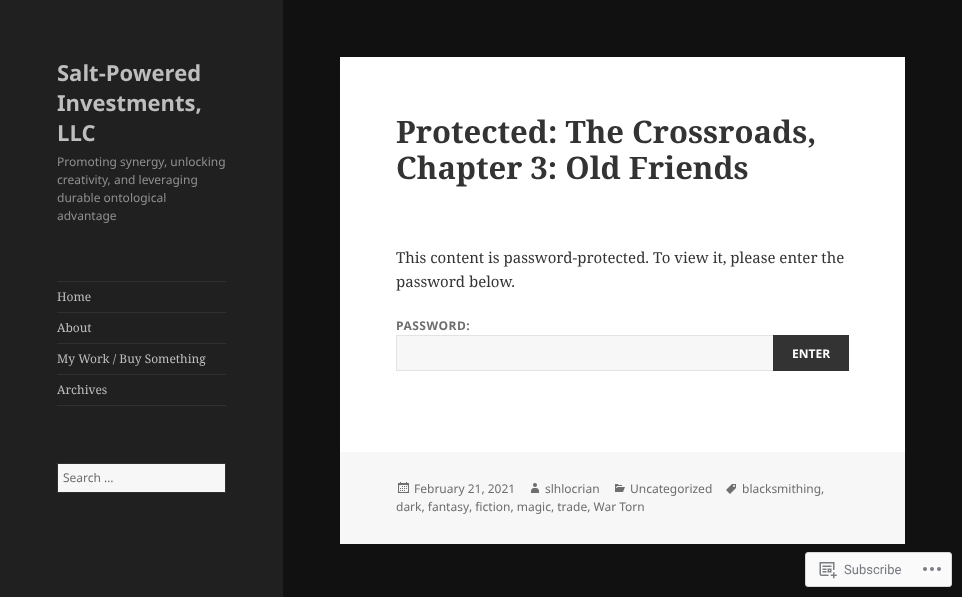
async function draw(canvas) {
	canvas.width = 962;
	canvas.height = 597;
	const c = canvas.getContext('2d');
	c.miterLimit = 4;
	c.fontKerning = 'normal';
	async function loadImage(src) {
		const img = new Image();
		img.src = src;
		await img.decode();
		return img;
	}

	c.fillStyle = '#111';
	c.fillRect(0, 0, 962, 597);
	c.fillStyle = '#202020';
	c.fillRect(0, 0, 283, 597);
	c.font = 'bold 22px Noto Sans';
	c.fillStyle = '#bebebe';
	for (const [text, x, y] of [
		['Salt-Powered', 57, 81],
		['Investments,', 57, 111],
		['LLC', 57, 141],
	]) {
		c.fillText(text, x, y);
	}
	c.font = '12px Noto Sans';
	c.fillStyle = '#8f8f8f';
	for (const [text, x, y] of [
		['Promoting synergy, unlocking', 57, 166],
		['creativity, and leveraging', 57, 184],
		['durable ontological', 57, 202],
		['advantage', 57, 220],
	]) {
		c.fillText(text, x, y);
	}
	c.fillStyle = '#303030';
	c.fillRect(57, 281, 169, 1);
	c.fillRect(57, 405, 169, 1);
	c.font = '12px Noto Serif';
	c.fillStyle = '#bebebe';
	c.fillText('Home', 57, 301);
	c.fillStyle = '#303030';
	c.fillRect(57, 312, 169, 1);
	c.fillStyle = '#bebebe';
	c.fillText('About', 57, 332);
	c.fillStyle = '#303030';
	c.fillRect(57, 343, 169, 1);
	c.fillStyle = '#bebebe';
	c.fillText('My Work / Buy Something', 57, 363);
	c.fillStyle = '#303030';
	c.fillRect(57, 374, 169, 1);
	c.fillStyle = '#bebebe';
	c.fillText('Archives', 57, 394);
	c.fillStyle = '#f7f7f7';
	c.beginPath();
	c.rect(57.5, 463.5, 168, 29);
	c.fill();
	c.strokeStyle = '#303030';
	c.stroke();
	c.font = '12px Noto Sans';
	c.fillStyle = '#6e6e6e';
	c.fillText('Search …', 63, 482);
	c.fillStyle = '#fff';
	c.fillRect(340, 57, 565, 395);
	c.font = 'bold 31px Noto Serif';
	c.fillStyle = '#333';
	c.fillText('Protected: The Crossroads,', 396, 143);
	c.fillText('Chapter 3: Old Friends', 396, 179);
	c.font = '15px Noto Serif';
	c.fillText('This content is password-protected. To view it, please enter the', 396, 263);
	c.fillText('password below.', 396, 287);
	c.letterSpacing = '0.5px';
	c.font = 'bold 12px Noto Sans';
	c.fillStyle = '#6e6e6e';
	c.fillText('PASSWORD:', 396, 330);
	c.fillStyle = '#f7f7f7';
	c.fillRect(397, 336, 376, 34);
	c.strokeStyle = '#e3e3e3';
	c.strokeRect(396.5, 335.5, 452, 35);
	c.fillStyle = '#333';
	c.fillRect(773, 335, 76, 36);
	c.letterSpacing = '0px';
	c.fillStyle = '#fff';
	c.fillText('ENTER', 792, 358);
	c.fillStyle = '#f7f7f7';
	c.fillRect(340, 452, 565, 92);
	c.drawImage(await loadImage('img1.png'), 726, 484, 10, 10);
	c.font = '12px Noto Sans';
	c.fillStyle = '#6e6e6e';
	for (const [text, x, y] of [
		['blacksmithing,', 742, 493],
		['dark, fantasy', 396, 511],
		[', fiction, magic, trade, War Torn', 469, 511],
	]) {
		c.fillText(text, x, y);
	}
	c.drawImage(await loadImage('img2.png'), 398, 482, 11, 11);
	c.fillText('February 21, 2021', 414, 493);
	c.drawImage(await loadImage('img3.png'), 531, 483, 8, 10);
	c.fillText('slhlocrian', 545, 493);
	c.drawImage(await loadImage('img4.png'), 615, 484, 10, 8);
	c.fillText('Uncategorized', 630, 493);
	c.fillStyle = '#fafafa';
	c.beginPath();
	c.roundRect(805.5, 552.5, 146, 34, 2.5);
	c.fill();
	c.strokeStyle = '#d8d8da';
	c.stroke();
	c.drawImage(await loadImage('img5.png'), 819, 562, 18, 17);
	c.font = '13px Roboto';
	c.fillStyle = '#767a80';
	c.fillText('Subscribe', 844, 574);
	c.drawImage(await loadImage('img6.png'), 923, 567, 18, 4);
}

draw(document.querySelector('canvas'));
